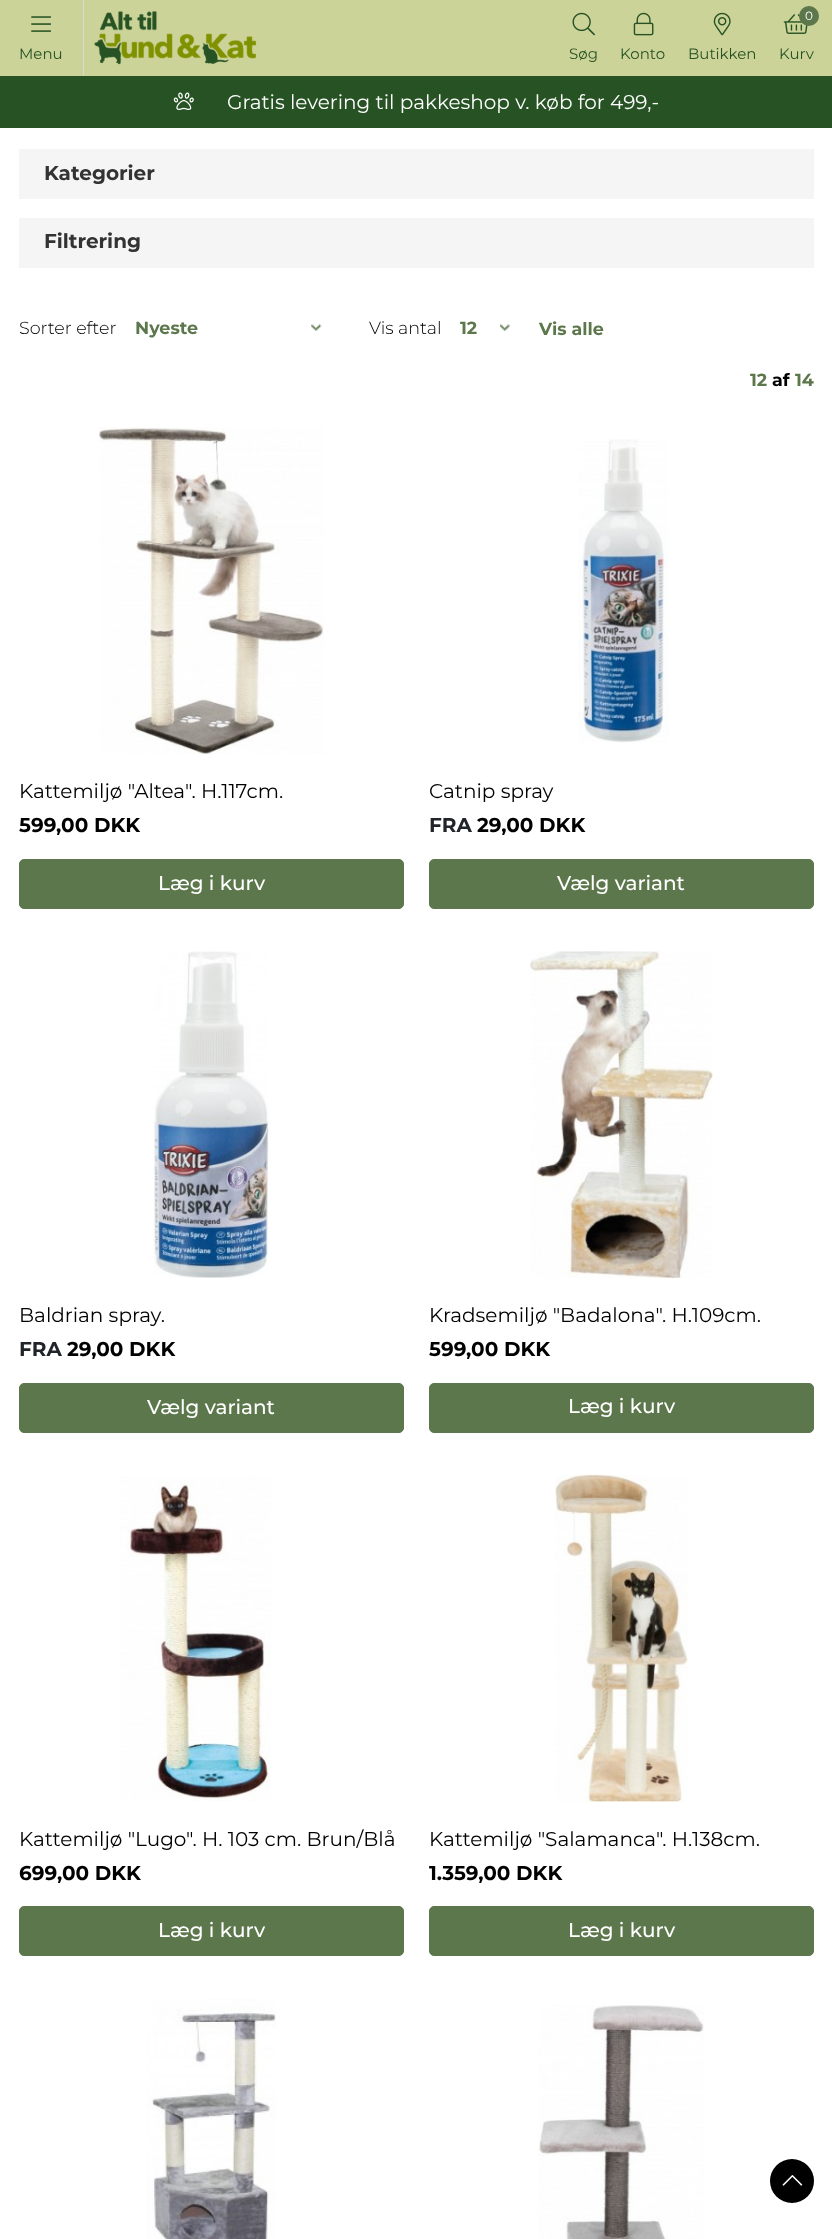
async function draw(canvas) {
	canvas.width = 832;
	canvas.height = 2239;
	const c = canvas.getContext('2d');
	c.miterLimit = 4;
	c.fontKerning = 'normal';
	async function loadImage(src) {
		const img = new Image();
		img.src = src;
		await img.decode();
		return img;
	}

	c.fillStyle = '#fff';
	c.fillRect(0, 0, 832, 2239);
	c.fillStyle = '#ccd399';
	c.fillRect(0, 0, 832, 76);
	c.fillStyle = '#d8d8d8';
	c.fillRect(83, 0, 1, 76);
	c.drawImage(await loadImage('img1.png'), 31, 16, 20, 16);
	c.font = '15px Montserrat';
	c.fillStyle = '#275324';
	c.fillText('Menu', 19, 59);
	c.drawImage(await loadImage('img2.png'), 94, 11, 163, 54);
	c.drawImage(await loadImage('img3.png'), 572, 12, 23, 24);
	c.fillText('Søg', 569, 59);
	c.drawImage(await loadImage('img4.png'), 633, 12, 21, 24);
	c.fillText('Konto', 620, 59);
	c.drawImage(await loadImage('img5.png'), 713, 12, 18, 24);
	c.fillText('Butikken', 688, 59);
	c.drawImage(await loadImage('img6.png'), 783, 14, 25, 20);
	c.fillStyle = '#5d774c';
	c.beginPath();
	c.arc(809, 16, 10, 0, 2 * Math.PI);
	c.fill();
	c.font = '12px Montserrat';
	c.fillStyle = '#fff';
	c.fillText('0', 805, 20);
	c.font = '15px Montserrat';
	c.fillStyle = '#275324';
	c.fillText('Kurv', 779, 59);
	c.fillRect(0, 76, 832, 52);
	c.drawImage(await loadImage('img7.png'), 173, 92, 21, 18);
	c.font = '20px Montserrat';
	c.fillStyle = '#fff';
	c.fillText('Gratis levering til pakkeshop v. køb for 499,-', 227, 109);
	c.fillStyle = '#f5f5f5';
	c.fillRect(19, 149, 795, 50);
	c.font = 'bold 20px Montserrat';
	c.fillStyle = '#333';
	c.fillText('Kategorier', 44, 180);
	c.fillStyle = '#f5f5f5';
	c.fillRect(19, 218, 795, 50);
	c.fillStyle = '#333';
	c.fillText('Filtrering', 44, 248);
	c.font = '300 17.5px Montserrat';
	c.fillStyle = '#000';
	c.fillText('Sorter efter', 19, 334);
	c.drawImage(await loadImage('img8.png'), 311, 324, 11, 7);
	c.font = 'bold 17.5px Montserrat';
	c.fillStyle = '#5d774c';
	c.fillText('Nyeste', 135, 334);
	c.font = '300 17.5px Montserrat';
	c.fillStyle = '#000';
	c.fillText('Vis antal', 369, 334);
	c.drawImage(await loadImage('img9.png'), 500, 324, 11, 7);
	c.font = 'bold 17.5px Montserrat';
	c.fillStyle = '#5d774c';
	for (const [text, x, y] of [
		['12', 460, 334],
		['Vis alle', 539, 335],
		['12', 750, 386],
	]) {
		c.fillText(text, x, y);
	}
	c.fillStyle = '#000';
	c.fillText('af', 772, 386);
	c.fillStyle = '#5d774c';
	c.fillText('14', 795, 386);
	c.drawImage(await loadImage('img10.png'), 98, 427, 226, 328);
	c.font = '20px Montserrat';
	c.fillStyle = '#000';
	c.fillText('Kattemiljø "Altea". H.117cm.', 19, 798);
	c.font = 'bold 20px Montserrat';
	c.fillText('599,00 DKK', 19, 832);
	c.fillStyle = '#5d774c';
	c.beginPath();
	c.roundRect(19.5, 859.5, 384, 49, 4.5);
	c.fill();
	c.strokeStyle = '#5d774c';
	c.stroke();
	c.font = '500 20px Montserrat';
	c.fillStyle = '#fff';
	c.fillText('Læg i kurv', 158, 890);
	c.drawImage(await loadImage('img11.png'), 578, 439, 91, 304);
	c.font = '20px Montserrat';
	c.fillStyle = '#000';
	c.fillText('Catnip spray', 429, 798);
	c.font = 'bold 20px Montserrat';
	c.fillStyle = '#212529';
	c.fillText('FRA', 429, 832);
	c.fillStyle = '#000';
	c.fillText('29,00 DKK', 477, 832);
	c.fillStyle = '#5d774c';
	c.beginPath();
	c.roundRect(429.5, 859.5, 384, 49, 4.5);
	c.fill();
	c.stroke();
	c.font = '500 20px Montserrat';
	c.fillStyle = '#fff';
	c.fillText('Vælg variant', 557, 890);
	c.drawImage(await loadImage('img12.png'), 153, 951, 116, 327);
	c.font = '20px Montserrat';
	c.fillStyle = '#000';
	c.fillText('Baldrian spray.', 19, 1322);
	c.font = 'bold 20px Montserrat';
	c.fillStyle = '#212529';
	c.fillText('FRA', 19, 1356);
	c.fillStyle = '#000';
	c.fillText('29,00 DKK', 67, 1356);
	c.fillStyle = '#5d774c';
	c.beginPath();
	c.roundRect(19.5, 1383.5, 384, 49, 4.5);
	c.fill();
	c.stroke();
	c.font = '500 20px Montserrat';
	c.fillStyle = '#fff';
	c.fillText('Vælg variant', 147, 1414);
	c.drawImage(await loadImage('img13.png'), 530, 951, 183, 327);
	c.font = '20px Montserrat';
	c.fillStyle = '#000';
	c.fillText('Kradsemiljø "Badalona". H.109cm.', 429, 1322);
	c.font = 'bold 20px Montserrat';
	c.fillText('599,00 DKK', 429, 1356);
	c.fillStyle = '#5d774c';
	c.beginPath();
	c.roundRect(429.5, 1383.5, 384, 49, 4.5);
	c.fill();
	c.stroke();
	c.font = '500 20px Montserrat';
	c.fillStyle = '#fff';
	c.fillText('Læg i kurv', 568, 1413);
	c.drawImage(await loadImage('img14.png'), 120, 1476, 151, 325);
	c.font = '20px Montserrat';
	c.fillStyle = '#000';
	c.fillText('Kattemiljø "Lugo". H. 103 cm. Brun/Blå', 19, 1846);
	c.font = 'bold 20px Montserrat';
	c.fillText('699,00 DKK', 19, 1880);
	c.fillStyle = '#5d774c';
	c.beginPath();
	c.roundRect(19.5, 1906.5, 384, 49, 4.5);
	c.fill();
	c.stroke();
	c.font = '500 20px Montserrat';
	c.fillStyle = '#fff';
	c.fillText('Læg i kurv', 158, 1937);
	c.drawImage(await loadImage('img15.png'), 555, 1474, 133, 328);
	c.font = '20px Montserrat';
	c.fillStyle = '#000';
	c.fillText('Kattemiljø "Salamanca". H.138cm.', 429, 1846);
	c.font = 'bold 20px Montserrat';
	c.fillText('1.359,00 DKK', 429, 1880);
	c.fillStyle = '#5d774c';
	c.beginPath();
	c.roundRect(429.5, 1906.5, 384, 49, 4.5);
	c.fill();
	c.stroke();
	c.font = '500 20px Montserrat';
	c.fillStyle = '#fff';
	c.fillText('Læg i kurv', 568, 1937);
	c.drawImage(await loadImage('img16.png'), 147, 1999, 129, 240);
	c.drawImage(await loadImage('img17.png'), 538, 2005, 166, 234);
	c.fillStyle = '#000';
	c.beginPath();
	c.arc(792, 2181, 22, 0, 2 * Math.PI);
	c.fill();
	c.drawImage(await loadImage('img18.png'), 782, 2175, 21, 11);
}

draw(document.querySelector('canvas'));
